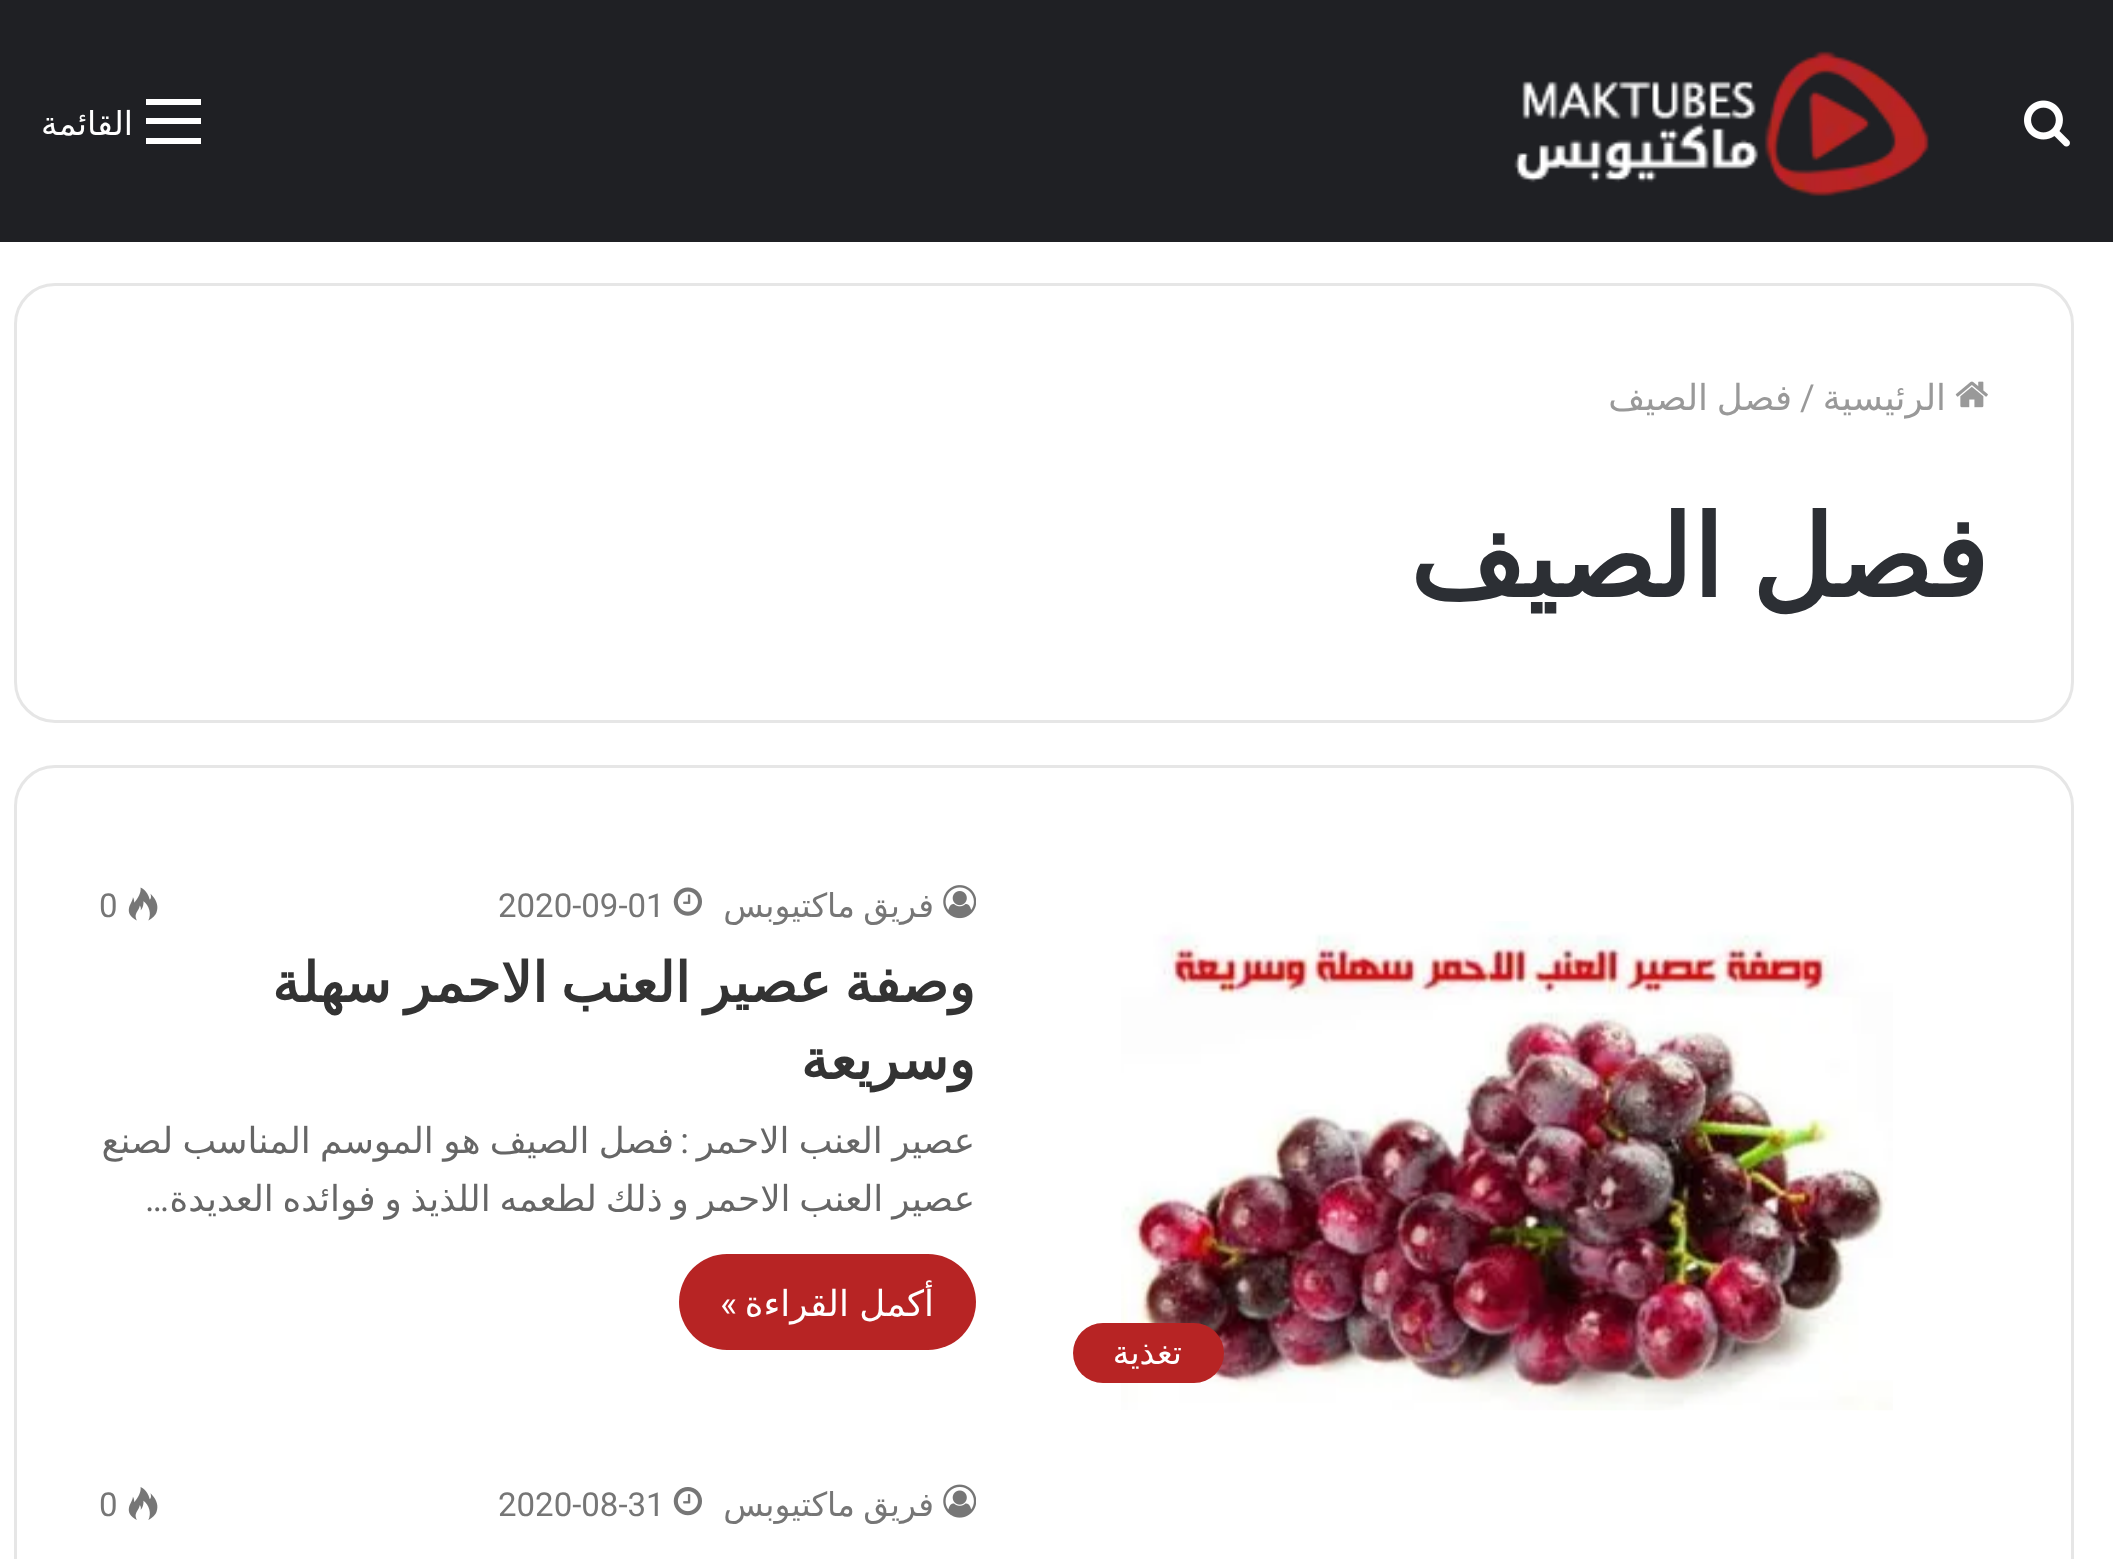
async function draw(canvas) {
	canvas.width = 2113;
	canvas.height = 1559;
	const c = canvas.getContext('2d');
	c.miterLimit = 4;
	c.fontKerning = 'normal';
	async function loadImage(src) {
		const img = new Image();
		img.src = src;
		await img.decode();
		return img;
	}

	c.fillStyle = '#fff';
	c.fillRect(0, 0, 2113, 1559);
	c.fillStyle = '#1f2024';
	c.fillRect(0, 0, 2113, 242);
	c.drawImage(await loadImage('img1.png'), 2024, 100, 46, 47);
	c.drawImage(await loadImage('img2.png'), 1514, 51, 415, 146);
	for (const [x, y, w, h, color] of [
		[146, 118, 55, 6, '#fff'],
		[146, 99, 55, 6, '#fff'],
		[146, 138, 55, 6, '#fff'],
	]) {
		c.fillStyle = color;
		c.fillRect(x, y, w, h);
	}
	c.direction = 'rtl';
	c.font = '33px DejaVu Sans';
	c.fillText('القائمة', 133, 135);
	c.beginPath();
	c.roundRect(15.5, 284.5, 2057, 437, 39.5);
	c.strokeStyle = '#e6e6e6';
	c.lineWidth = 3;
	c.stroke();
	c.drawImage(await loadImage('img3.png'), 1955, 381, 33, 27);
	c.font = '35.75px DejaVu Sans';
	c.fillStyle = '#999';
	c.fillText('الرئيسية', 1946, 410);
	c.direction = 'ltr';
	c.font = '35.75px Roboto';
	c.fillText('/', 1800, 410);
	c.wordSpacing = '-2.5px';
	c.direction = 'rtl';
	c.font = '35.75px DejaVu Sans';
	c.fillText('فصل الصيف', 1792, 410);
	c.wordSpacing = '-8px';
	c.font = 'bold 112.75px DejaVu Sans';
	c.fillStyle = '#2c2f34';
	c.fillText('فصل الصيف', 1988, 597);
	c.beginPath();
	c.roundRect(15.5, 766.5, 2057, 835, 39.5);
	c.stroke();
	c.drawImage(await loadImage('img4.png'), 943, 885, 33, 34);
	c.wordSpacing = '-2px';
	c.font = '33px DejaVu Sans';
	c.fillStyle = '#767676';
	c.fillText('فريق ماكتيوبس', 934, 917);
	c.drawImage(await loadImage('img5.png'), 673, 887, 29, 29);
	c.wordSpacing = '0px';
	c.direction = 'ltr';
	c.font = '33px Roboto';
	c.fillText('2020-09-01', 498, 917);
	c.drawImage(await loadImage('img6.png'), 128, 887, 30, 34);
	c.fillText('0', 99, 917);
	c.wordSpacing = '-4px';
	c.direction = 'rtl';
	c.font = 'bold 55px DejaVu Sans';
	c.fillStyle = '#333';
	c.fillText('وصفة عصير العنب الاحمر سهلة', 975, 1002);
	c.wordSpacing = '0px';
	c.fillText('وسريعة', 975, 1079);
	c.wordSpacing = '-2px';
	c.font = '35.75px DejaVu Sans';
	c.fillStyle = '#666';
	c.fillText('عصير العنب الاحمر', 975, 1153);
	c.wordSpacing = '0px';
	c.font = '35.75px Roboto';
	c.fillText(':', 689, 1153);
	c.wordSpacing = '-2px';
	c.font = '35.75px DejaVu Sans';
	c.fillText('فصل الصيف هو الموسم المناسب لصنع', 674, 1153);
	c.wordSpacing = '-2.5px';
	c.fillText('عصير العنب الاحمر و ذلك لطعمه اللذيذ و فوائده العديدة', 975, 1211);
	c.wordSpacing = '0px';
	c.font = '35.75px Roboto';
	c.fillText('…', 169, 1211);
	c.fillStyle = '#b72424';
	c.beginPath();
	c.roundRect(679, 1254, 297, 96, 48);
	c.fill();
	c.wordSpacing = '-1px';
	c.font = '35.75px DejaVu Sans';
	c.fillStyle = '#fff';
	c.fillText('أكمل القراءة', 934, 1316);
	c.wordSpacing = '0px';
	c.font = '35.75px Roboto';
	c.fillText('»', 737, 1316);
	c.drawImage(await loadImage('img7.png'), 1121, 921, 772, 490);
	c.fillStyle = '#b72424';
	c.beginPath();
	c.roundRect(1073, 1323, 151, 60, 30);
	c.fill();
	c.font = '33px DejaVu Sans';
	c.fillStyle = '#fff';
	c.fillText('تغذية', 1182, 1364);
	c.drawImage(await loadImage('img8.png'), 943, 1484, 33, 34);
	c.wordSpacing = '-2px';
	c.fillStyle = '#767676';
	c.fillText('فريق ماكتيوبس', 934, 1516);
	c.drawImage(await loadImage('img9.png'), 673, 1487, 29, 29);
	c.wordSpacing = '0px';
	c.direction = 'ltr';
	c.font = '33px Roboto';
	c.fillText('2020-08-31', 498, 1516);
	c.drawImage(await loadImage('img10.png'), 128, 1487, 30, 33);
	c.fillText('0', 99, 1516);
}

draw(document.querySelector('canvas'));
